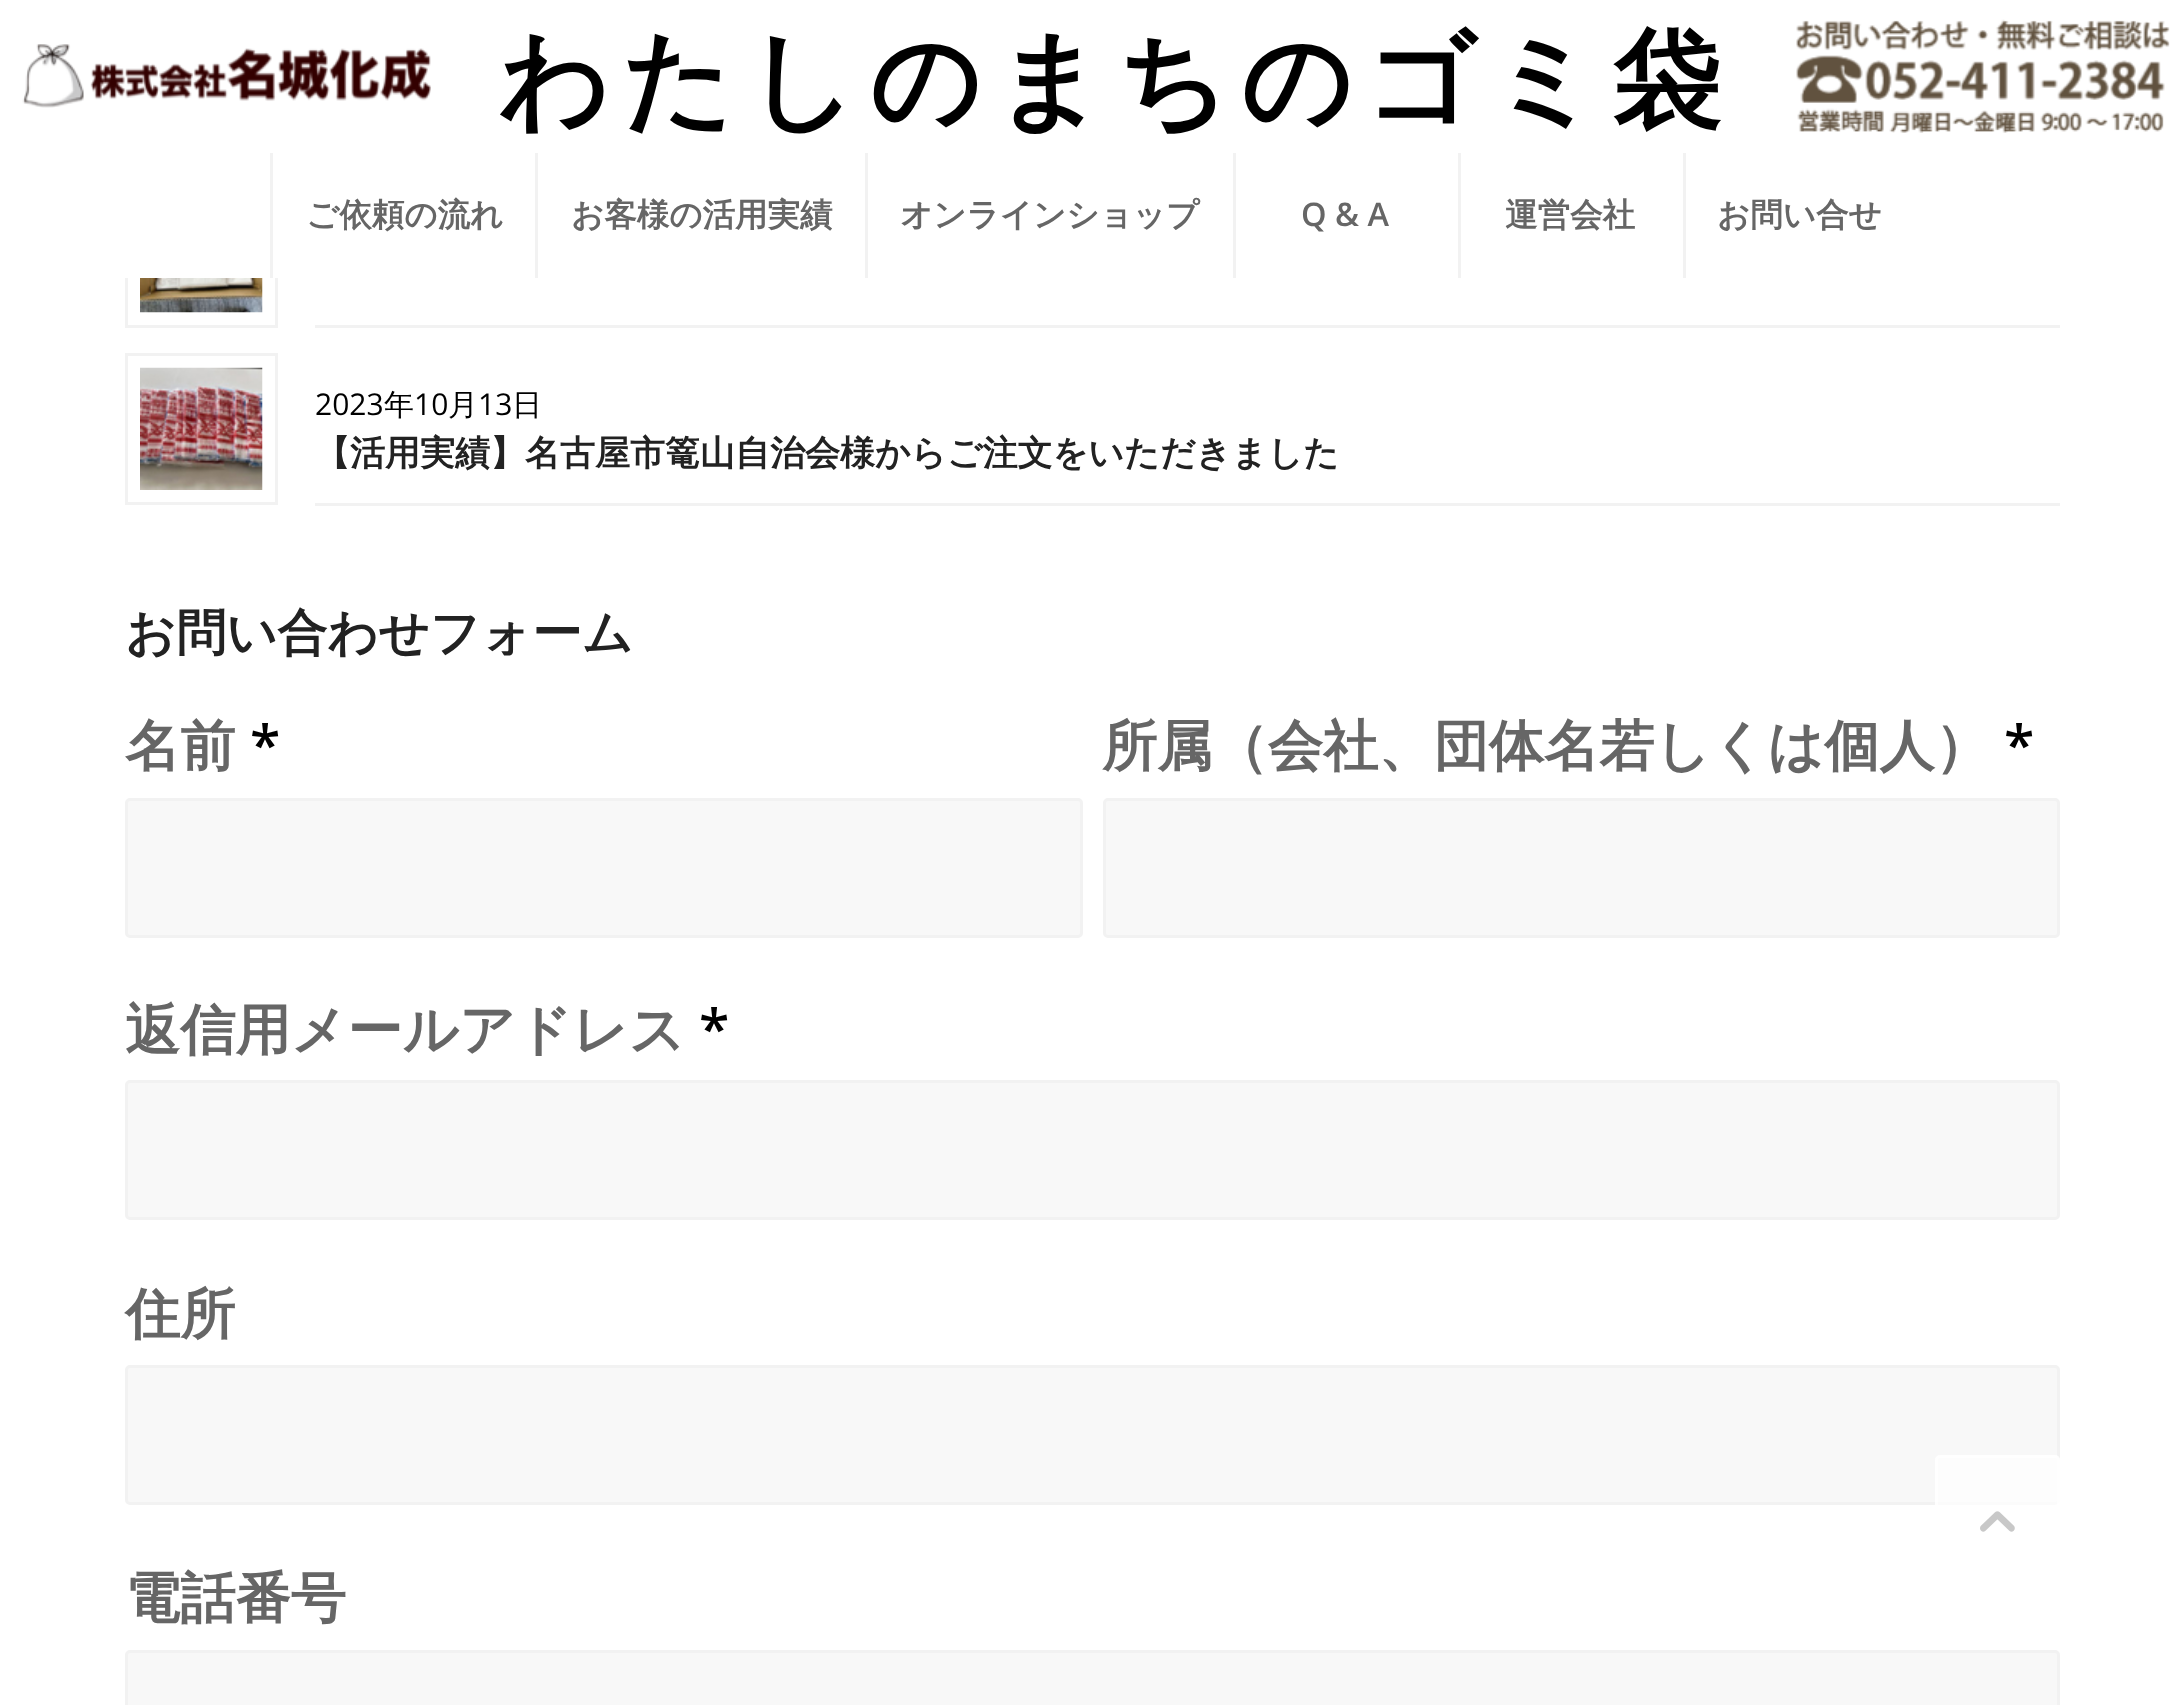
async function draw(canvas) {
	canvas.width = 2184;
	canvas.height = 1705;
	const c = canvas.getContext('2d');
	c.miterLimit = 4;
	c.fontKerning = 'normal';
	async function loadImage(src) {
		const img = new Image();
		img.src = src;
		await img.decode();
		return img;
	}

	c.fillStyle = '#fff';
	c.fillRect(0, 0, 2184, 1705);
	c.strokeStyle = '#f2f2f2';
	c.lineWidth = 3;
	c.strokeRect(126.5, 176.5, 150, 150);
	c.fillRect(125, 175, 153, 103);
	c.drawImage(await loadImage('img1.png'), 22, 44, 409, 64);
	c.letterSpacing = '12px';
	c.font = 'bold 109.25px WenQuanYi Zen Hei';
	c.fillStyle = '#000';
	c.fillText('わたしのまちのゴミ袋', 498, 118);
	c.drawImage(await loadImage('img2.png'), 1796, 19, 374, 114);
	c.fillStyle = '#f2f2f2';
	c.fillRect(270, 153, 3, 125);
	c.letterSpacing = '0px';
	c.font = 'bold 32.5px WenQuanYi Zen Hei';
	c.fillStyle = '#666';
	c.fillText('ご依頼の流れ', 306, 226);
	c.fillStyle = '#f2f2f2';
	c.fillRect(535, 153, 3, 125);
	c.fillStyle = '#666';
	c.fillText('お客様の活用実績', 571, 226);
	c.fillStyle = '#f2f2f2';
	c.fillRect(865, 153, 3, 125);
	c.fillStyle = '#666';
	c.fillText('オンラインショップ', 900, 226);
	c.fillStyle = '#f2f2f2';
	c.fillRect(1233, 153, 3, 125);
	c.font = '600 32.5px Open Sans';
	c.fillStyle = '#666';
	c.fillText('Q & A', 1301, 226);
	c.fillStyle = '#f2f2f2';
	c.fillRect(1458, 153, 3, 125);
	c.font = 'bold 32.5px WenQuanYi Zen Hei';
	c.fillStyle = '#666';
	c.fillText('運営会社', 1505, 226);
	c.fillStyle = '#f2f2f2';
	c.fillRect(1683, 153, 3, 125);
	c.fillStyle = '#666';
	c.fillText('お問い合せ', 1717, 226);
	c.drawImage(await loadImage('img3.png'), 140, 278, 123, 35);
	c.fillStyle = '#f2f2f2';
	c.fillRect(315, 325, 1745, 3);
	c.strokeRect(126.5, 354.5, 150, 149);
	c.drawImage(await loadImage('img4.png'), 140, 367, 123, 123);
	c.fillRect(315, 503, 1745, 3);
	c.font = '30px Open Sans';
	c.fillStyle = '#000';
	c.fillText('2023', 315, 415);
	c.font = '500 30px WenQuanYi Zen Hei';
	c.fillText('年', 384, 415);
	c.font = '30px Open Sans';
	c.fillText('10', 414, 415);
	c.font = '500 30px WenQuanYi Zen Hei';
	c.fillText('月', 448, 415);
	c.font = '30px Open Sans';
	c.fillText('13', 478, 415);
	c.font = '500 30px WenQuanYi Zen Hei';
	c.fillText('日', 512, 415);
	c.font = 'bold 35px WenQuanYi Zen Hei';
	c.fillStyle = '#222';
	c.fillText('【活用実績】名古屋市篭山自治会様からご注文をいただきました', 315, 465);
	c.font = 'bold 50px WenQuanYi Zen Hei';
	c.fillText('お問い合わせフォーム', 125, 650);
	c.font = 'bold 55.25px WenQuanYi Zen Hei';
	c.fillStyle = '#666';
	c.fillText('名前', 125, 765);
	c.font = '600 55.25px Open Sans';
	c.fillStyle = '#000';
	c.fillText('*', 250, 765);
	c.fillStyle = '#f8f8f8';
	c.beginPath();
	c.roundRect(126.5, 799.5, 955, 137, 3.5);
	c.fill();
	c.stroke();
	c.font = 'bold 55.25px WenQuanYi Zen Hei';
	c.fillStyle = '#666';
	c.fillText('所属（会社、団体名若しくは個人）', 1102, 765);
	c.font = '600 55.25px Open Sans';
	c.fillStyle = '#000';
	c.fillText('*', 2004, 765);
	c.fillStyle = '#f8f8f8';
	c.beginPath();
	c.roundRect(1104.5, 799.5, 954, 137, 3.5);
	c.fill();
	c.stroke();
	c.font = 'bold 55.25px WenQuanYi Zen Hei';
	c.fillStyle = '#666';
	c.fillText('返信用メールアドレス', 125, 1049);
	c.font = '600 55.25px Open Sans';
	c.fillStyle = '#000';
	c.fillText('*', 699, 1049);
	c.fillStyle = '#f8f8f8';
	c.beginPath();
	c.roundRect(126.5, 1081.5, 1932, 137, 3.5);
	c.fill();
	c.stroke();
	c.font = 'bold 55.25px WenQuanYi Zen Hei';
	c.fillStyle = '#666';
	c.fillText('住所', 125, 1333);
	c.fillStyle = '#f8f8f8';
	c.beginPath();
	c.roundRect(126.5, 1366.5, 1932, 137, 3.5);
	c.fill();
	c.stroke();
	c.fillStyle = '#666';
	c.fillText('電話番号', 125, 1617);
	c.fillStyle = '#f8f8f8';
	c.beginPath();
	c.roundRect(126.5, 1651.5, 1932, 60, 3.5);
	c.fill();
	c.stroke();
	c.fillStyle = '#ffffffb3';
	c.beginPath();
	c.roundRect(1935, 1455, 125, 125, 5);
	c.fill();
	c.beginPath();
	c.roundRect(1936.5, 1456.5, 122, 122, 3.5);
	c.strokeStyle = '#ffffffb3';
	c.stroke();
	c.drawImage(await loadImage('img5.png'), 1980, 1511, 35, 21);
}

draw(document.querySelector('canvas'));
